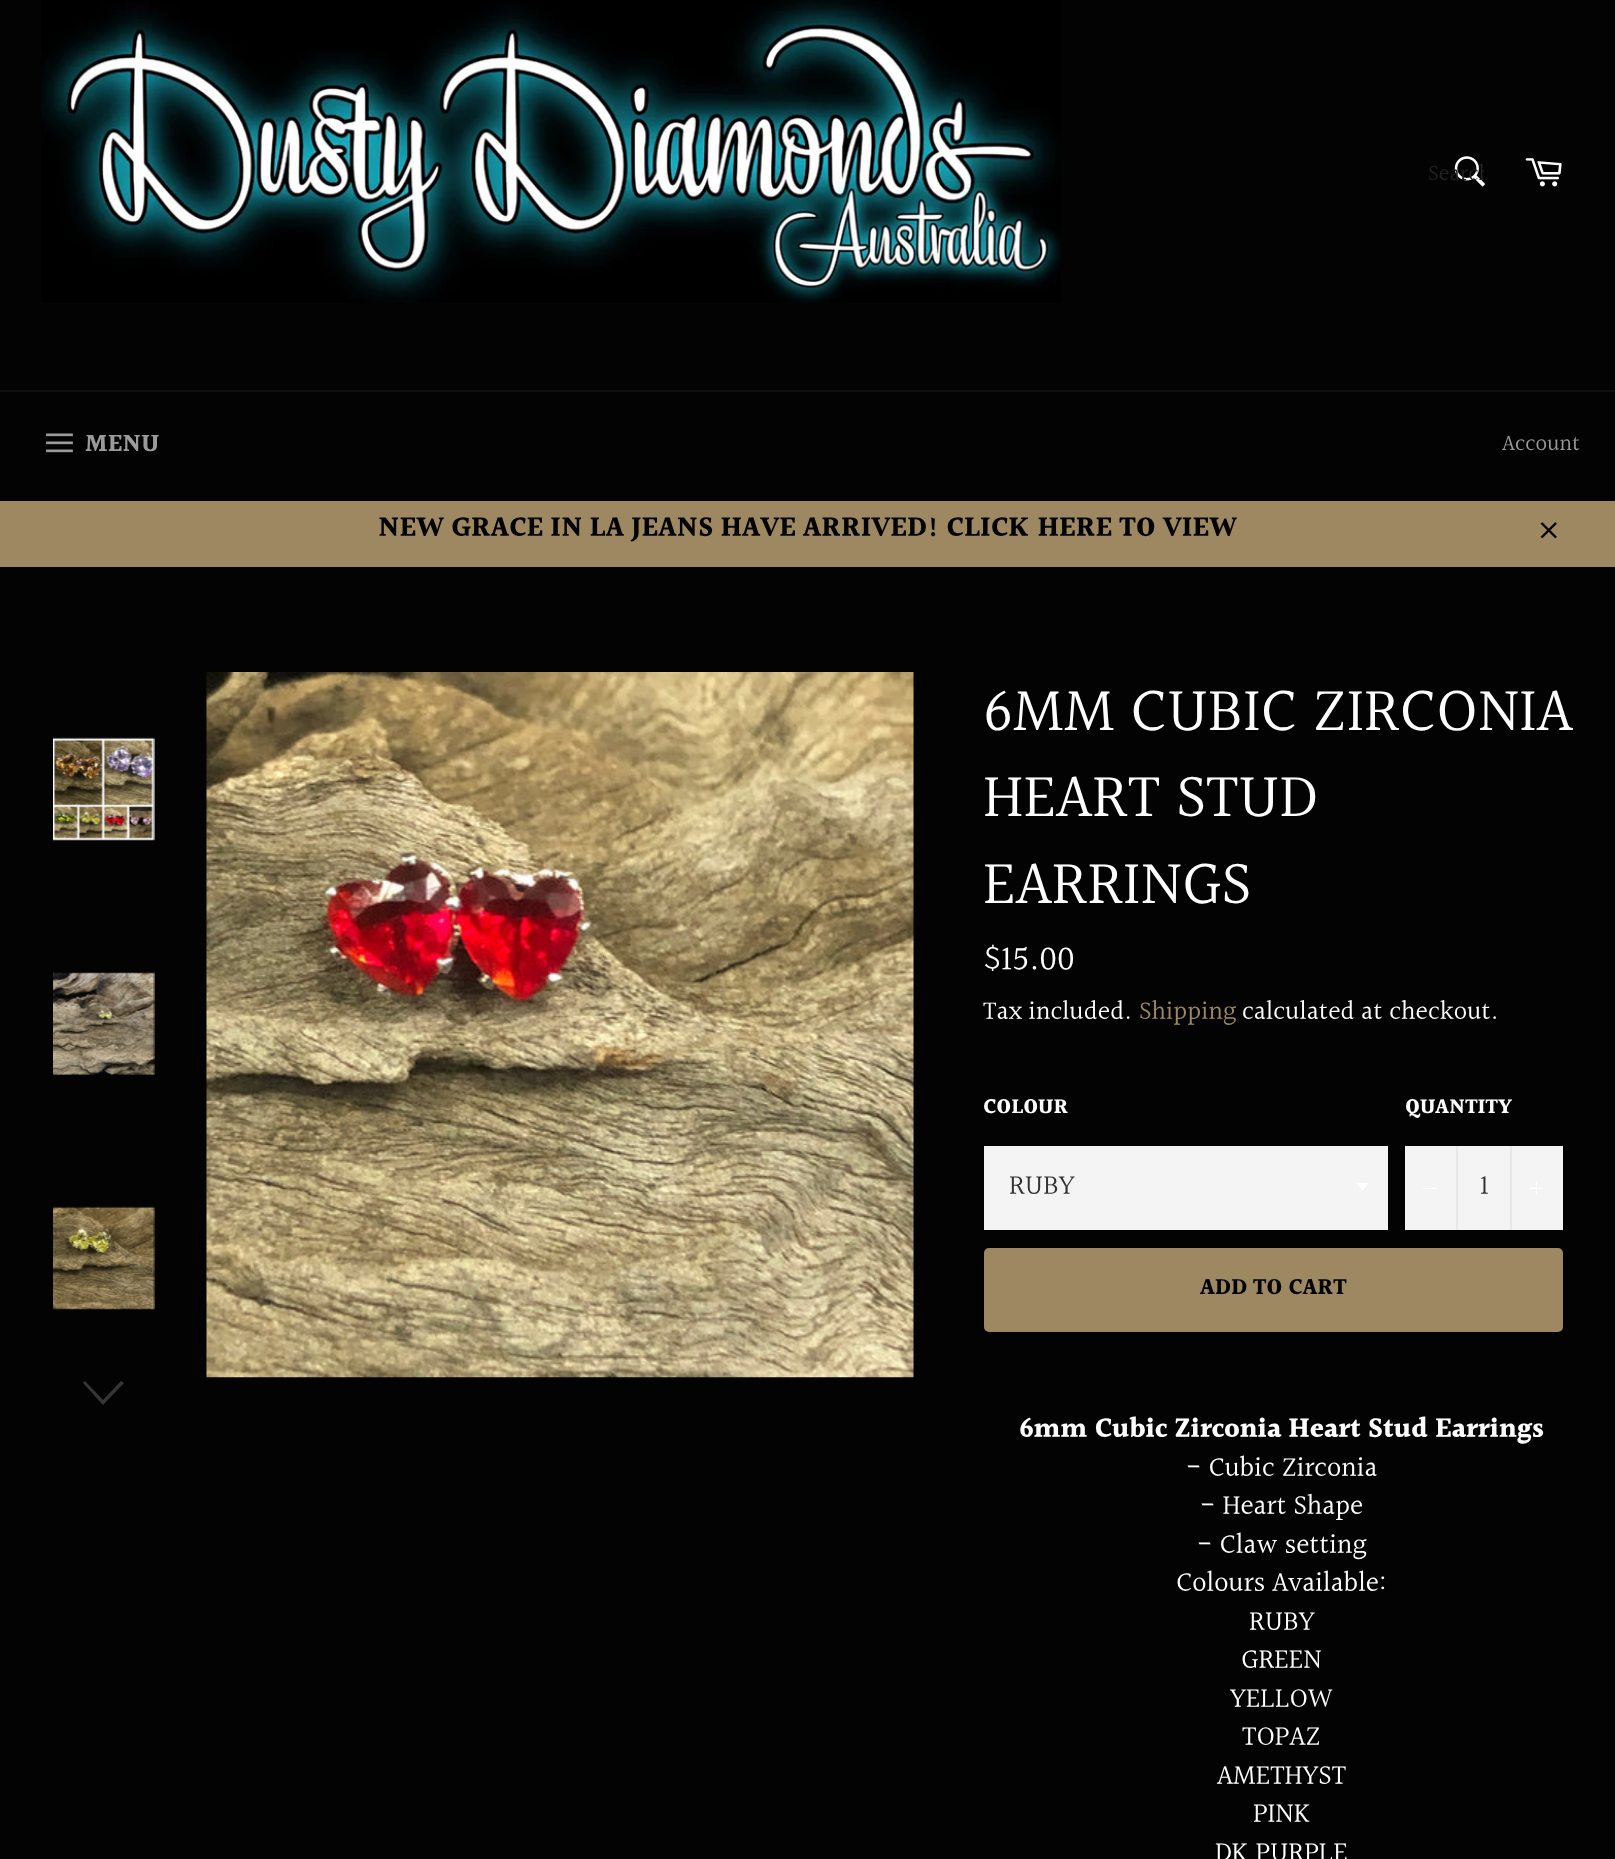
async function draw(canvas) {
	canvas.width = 1615;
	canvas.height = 1859;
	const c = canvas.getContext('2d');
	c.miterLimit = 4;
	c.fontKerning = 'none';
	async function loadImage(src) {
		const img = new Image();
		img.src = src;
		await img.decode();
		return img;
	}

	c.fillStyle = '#030303';
	c.fillRect(0, 0, 1615, 1859);
	c.drawImage(await loadImage('img1.png'), 41, 0, 1020, 303);
	c.drawImage(await loadImage('img2.png'), 1454, 156, 32, 31);
	c.save();
	c.beginPath();
	c.rect(1428, 156, 56, 35);
	c.clip();
	c.font = '22.75px Halant';
	c.fillStyle = '#222';
	c.fillText('Search', 1428, 181);
	c.restore();
	c.drawImage(await loadImage('img3.png'), 1525, 158, 37, 29);
	c.fillStyle = '#101010';
	c.fillRect(0, 390, 1615, 2);
	c.drawImage(await loadImage('img4.png'), 46, 433, 27, 20);
	c.font = 'bold 24.5px Halant';
	c.fillStyle = '#9a9a9a';
	c.fillText('MENU', 85, 452);
	c.font = '22.75px Halant';
	c.fillText('Account', 1502, 451);
	c.fillStyle = '#9e8861';
	c.fillRect(0, 501, 1615, 66);
	c.font = 'bold 28px Halant';
	c.fillStyle = '#030303';
	c.fillText('NEW GRACE IN LA JEANS HAVE ARRIVED! CLICK HERE TO VIEW', 378, 537);
	c.drawImage(await loadImage('img5.png'), 1540, 522, 17, 17);
	c.drawImage(await loadImage('img6.png'), 53, 737, 102, 104);
	c.drawImage(await loadImage('img7.png'), 53, 972, 102, 103);
	c.drawImage(await loadImage('img8.png'), 53, 1206, 102, 104);
	c.fillStyle = '#353535';
	c.beginPath();
	c.moveTo(121, 1381);
	c.lineTo(124, 1383);
	c.lineTo(103, 1405);
	c.lineTo(83, 1383);
	c.lineTo(85, 1381);
	c.lineTo(103, 1400);
	c.closePath();
	c.fill();
	c.drawImage(await loadImage('img9.png'), 206, 672, 708, 706);
	c.font = '63px Halant';
	c.fillStyle = '#fff';
	for (const [text, x, y] of [
		['6MM CUBIC ZIRCONIA', 983, 733],
		['HEART STUD', 983, 819],
		['EARRINGS', 983, 906],
	]) {
		c.fillText(text, x, y);
	}
	c.font = '35px Halant';
	c.fillText('$15.00', 983, 971);
	c.font = '26.25px Halant';
	c.fillText('Tax included.', 983, 1020);
	c.fillStyle = '#9e8861';
	c.fillText('Shipping', 1139, 1020);
	c.fillStyle = '#fff';
	c.fillText('calculated at checkout.', 1242, 1020);
	c.font = 'bold 21px Halant';
	c.fillText('COLOUR', 983, 1114);
	c.fillStyle = '#f4f4f4';
	c.fillRect(984, 1146, 404, 84);
	c.fillStyle = '#fff';
	c.beginPath();
	c.moveTo(1356, 1183);
	c.lineTo(1362.5, 1190.5);
	c.lineTo(1368.5, 1183);
	c.closePath();
	c.fill();
	c.font = '28px Halant';
	c.fillStyle = '#333';
	c.fillText('RUBY', 1009, 1195);
	c.font = 'bold 21px Halant';
	c.fillStyle = '#fff';
	c.fillText('QUANTITY', 1405, 1114);
	for (const [x, y, w, h, color] of [
		[1405, 1146, 158, 84, '#f4f4f4'],
		[1456, 1146, 2, 84, '#e7e7e7'],
		[1423, 1188, 14, 1, '#fff'],
	]) {
		c.fillStyle = color;
		c.fillRect(x, y, w, h);
	}
	c.font = '28px Halant';
	c.fillStyle = '#333';
	c.fillText('1', 1480, 1195);
	c.fillStyle = '#e7e7e7';
	c.fillRect(1510, 1146, 2, 84);
	c.drawImage(await loadImage('img10.png'), 1530, 1181, 13, 14);
	c.fillStyle = '#9e8861';
	c.beginPath();
	c.roundRect(984, 1248, 579, 84, 5);
	c.fill();
	c.font = 'bold 22.75px Halant';
	c.fillStyle = '#030303';
	c.fillText('ADD TO CART', 1200, 1295);
	c.font = 'bold 28px Halant';
	c.fillStyle = '#fff';
	c.fillText('6mm Cubic Zirconia Heart Stud Earrings', 1019, 1438);
	c.font = '28px Halant';
	for (const [text, x, y] of [
		['- Cubic Zirconia', 1186, 1477],
		['- Heart Shape', 1200, 1515],
		['- Claw setting', 1197, 1554],
		['Colours Available:', 1176, 1592],
		['RUBY', 1249, 1631],
		['GREEN', 1241, 1669],
		['YELLOW', 1230, 1708],
		['TOPAZ', 1242, 1746],
		['AMETHYST', 1217, 1785],
		['PINK', 1253, 1823],
		['DK PURPLE', 1215, 1862],
	]) {
		c.fillText(text, x, y);
	}
}

draw(document.querySelector('canvas'));
